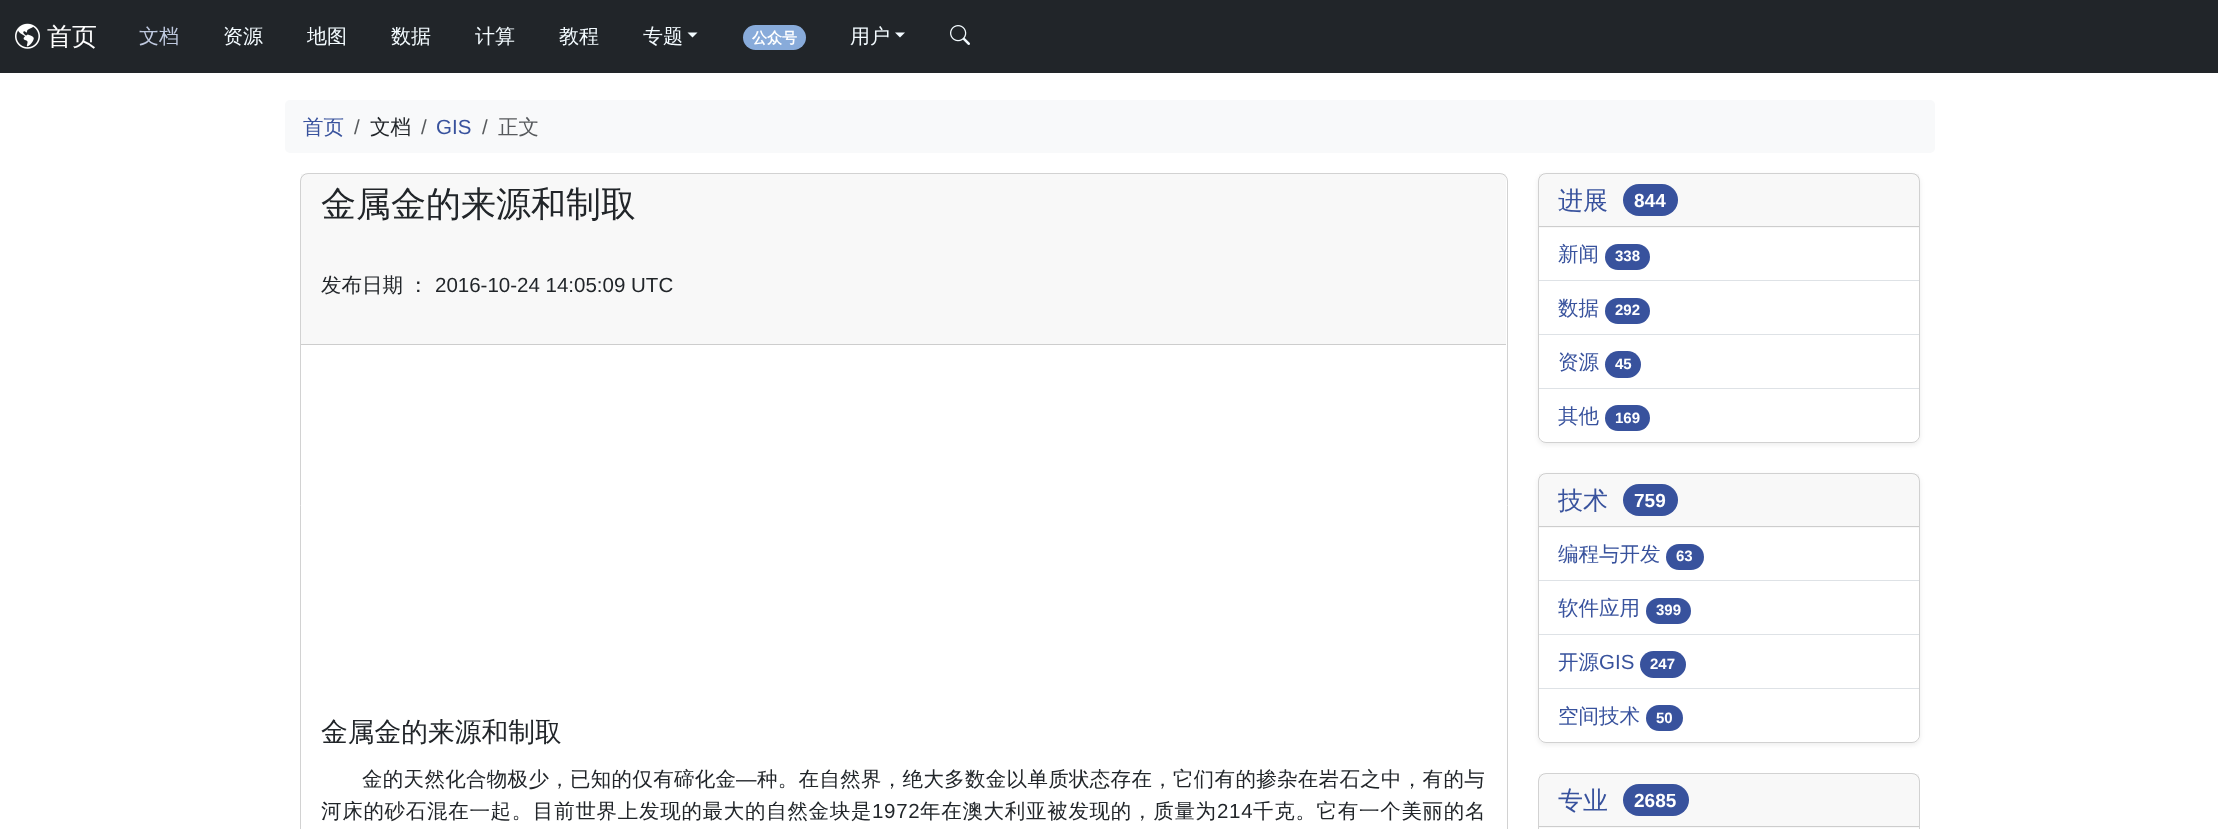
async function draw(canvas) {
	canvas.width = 2218;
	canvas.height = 829;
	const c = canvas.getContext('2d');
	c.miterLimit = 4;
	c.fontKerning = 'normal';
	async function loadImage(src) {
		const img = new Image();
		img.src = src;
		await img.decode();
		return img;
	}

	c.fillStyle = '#fff';
	c.fillRect(0, 0, 2218, 829);
	c.fillStyle = '#212529';
	c.fillRect(0, 0, 2218, 73);
	c.drawImage(await loadImage('img1.png'), 15, 23, 25, 26);
	c.font = '500 25px WenQuanYi Zen Hei';
	c.fillStyle = '#fff';
	c.fillText('首页', 47, 45);
	c.font = '500 20px WenQuanYi Zen Hei';
	c.fillStyle = '#bfc9df';
	c.fillText('文档', 139, 43);
	c.fillStyle = '#f3fbff';
	for (const [text, x, y] of [
		['资源', 223, 43],
		['地图', 307, 43],
		['数据', 391, 43],
		['计算', 475, 43],
		['教程', 559, 43],
		['专题', 643, 43],
	]) {
		c.fillText(text, x, y);
	}
	c.beginPath();
	c.moveTo(687.5, 32.5);
	c.lineTo(697.5, 32.5);
	c.lineTo(692.5, 37.5);
	c.closePath();
	c.fill();
	c.fillStyle = '#88abda';
	c.beginPath();
	c.roundRect(743, 25, 63, 25, 12.5);
	c.fill();
	c.font = 'bold 15px WenQuanYi Zen Hei';
	c.fillStyle = '#fff';
	c.fillText('公众号', 752, 43);
	c.font = '500 20px WenQuanYi Zen Hei';
	c.fillStyle = '#f3fbff';
	c.fillText('用户', 850, 43);
	c.beginPath();
	c.moveTo(895, 32.5);
	c.lineTo(905, 32.5);
	c.lineTo(900, 37.5);
	c.closePath();
	c.fill();
	c.drawImage(await loadImage('img2.png'), 950, 25, 20, 20);
	c.fillStyle = '#f8f9fa';
	c.beginPath();
	c.roundRect(285, 100, 1650, 53, 5);
	c.fill();
	c.font = '500 20.5px WenQuanYi Zen Hei';
	c.fillStyle = '#38529d';
	c.fillText('首页', 303, 134);
	c.font = '20.5px Liberation Sans';
	c.fillStyle = '#575a5d';
	c.fillText('/', 354, 134);
	c.font = '500 20.5px WenQuanYi Zen Hei';
	c.fillStyle = '#212529';
	c.fillText('文档', 370, 134);
	c.font = '20.5px Liberation Sans';
	c.fillStyle = '#575a5d';
	c.fillText('/', 421, 134);
	c.fillStyle = '#38529d';
	c.fillText('GIS', 436, 134);
	c.fillStyle = '#575a5d';
	c.fillText('/', 482, 134);
	c.font = '500 20.5px WenQuanYi Zen Hei';
	c.fillText('正文', 498, 134);
	c.beginPath();
	c.roundRect(300.5, 173.5, 1207, 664, 7.5);
	c.strokeStyle = '#d2d2d2';
	c.stroke();
	c.fillStyle = '#21252908';
	c.fillRect(301, 174, 1205, 170);
	c.fillStyle = '#cdcdcd';
	c.fillRect(301, 344, 1205, 1);
	c.font = '500 35px WenQuanYi Zen Hei';
	c.fillStyle = '#212529';
	c.fillText('金属金的来源和制取', 321, 216);
	c.font = '500 20.5px WenQuanYi Zen Hei';
	c.fillText('发布日期', 321, 292);
	c.fillText('：', 408, 292);
	c.font = '20.5px Liberation Sans';
	c.fillText('2016-10-24 14:05:09 UTC', 435, 292);
	c.font = '500 26.75px WenQuanYi Zen Hei';
	c.fillText('金属金的来源和制取', 321, 741);
	c.letterSpacing = '0.3px';
	c.font = '500 20.5px WenQuanYi Zen Hei';
	c.fillText('金的天然化合物极少，已知的仅有碲化金', 362, 786);
	c.font = '20.5px Liberation Sans';
	c.fillText('—', 736, 786);
	c.font = '500 20.5px WenQuanYi Zen Hei';
	c.fillText('种。在自然界，绝大多数金以单质状态存在，它们有的掺杂在岩石之中，有的与', 757, 786);
	c.letterSpacing = '0.7px';
	c.fillText('河床的砂石混在一起。目前世界上发现的最大的自然金块是', 321, 818);
	c.font = '20.5px Liberation Sans';
	c.fillText('1972', 872, 818);
	c.font = '500 20.5px WenQuanYi Zen Hei';
	c.fillText('年在澳大利亚被发现的，质量为', 920, 818);
	c.font = '20.5px Liberation Sans';
	c.fillText('214', 1217, 818);
	c.font = '500 20.5px WenQuanYi Zen Hei';
	c.fillText('千克。它有一个美丽的名', 1253, 818);
	c.fillStyle = '#00000012';
	c.filter = 'blur(2.5px)';
	c.beginPath();
	c.roundRect(1538, 175, 382, 270, 8);
	c.fill();
	c.filter = 'none';
	c.fillStyle = '#fff';
	c.beginPath();
	c.roundRect(1538, 173, 382, 270, 8);
	c.fill();
	c.beginPath();
	c.roundRect(1538.5, 173.5, 381, 269, 7.5);
	c.strokeStyle = '#0000002e';
	c.stroke();
	c.fillStyle = '#21252908';
	c.fillRect(1539, 174, 380, 54);
	c.fillStyle = '#cdcdcd';
	c.fillRect(1539, 226, 380, 1);
	c.letterSpacing = '0px';
	c.font = '500 25px WenQuanYi Zen Hei';
	c.fillStyle = '#38529d';
	c.fillText('进展', 1558, 209);
	c.beginPath();
	c.roundRect(1623, 184, 55, 32, 16);
	c.fill();
	c.font = 'bold 19px Liberation Sans';
	c.fillStyle = '#fff';
	c.fillText('844', 1634, 207);
	c.fillStyle = '#dee2e6';
	c.fillRect(1539, 280, 380, 1);
	c.font = '500 20.5px WenQuanYi Zen Hei';
	c.fillStyle = '#38529d';
	c.fillText('新闻', 1558, 261);
	c.beginPath();
	c.roundRect(1605, 244, 45, 26, 13);
	c.fill();
	c.font = 'bold 15px Liberation Sans';
	c.fillStyle = '#fff';
	c.fillText('338', 1615, 261);
	c.fillStyle = '#dee2e6';
	c.fillRect(1539, 334, 380, 1);
	c.font = '500 20.5px WenQuanYi Zen Hei';
	c.fillStyle = '#38529d';
	c.fillText('数据', 1558, 315);
	c.beginPath();
	c.roundRect(1605, 298, 45, 26, 13);
	c.fill();
	c.font = 'bold 15px Liberation Sans';
	c.fillStyle = '#fff';
	c.fillText('292', 1615, 315);
	c.fillStyle = '#dee2e6';
	c.fillRect(1539, 388, 380, 1);
	c.font = '500 20.5px WenQuanYi Zen Hei';
	c.fillStyle = '#38529d';
	c.fillText('资源', 1558, 369);
	c.beginPath();
	c.roundRect(1605, 351, 36, 27, 13.5);
	c.fill();
	c.font = 'bold 15px Liberation Sans';
	c.fillStyle = '#fff';
	c.fillText('45', 1615, 369);
	c.beginPath();
	c.roundRect(1539, 389, 380, 52, [0, 0, 6, 6]);
	c.fill();
	c.font = '500 20.5px WenQuanYi Zen Hei';
	c.fillStyle = '#38529d';
	c.fillText('其他', 1558, 423);
	c.beginPath();
	c.roundRect(1605, 405, 45, 26, 13);
	c.fill();
	c.font = 'bold 15px Liberation Sans';
	c.fillStyle = '#fff';
	c.fillText('169', 1615, 423);
	c.fillStyle = '#00000012';
	c.filter = 'blur(2.5px)';
	c.beginPath();
	c.roundRect(1538, 475, 382, 270, 8);
	c.fill();
	c.filter = 'none';
	c.fillStyle = '#fff';
	c.beginPath();
	c.roundRect(1538, 473, 382, 270, 8);
	c.fill();
	c.beginPath();
	c.roundRect(1538.5, 473.5, 381, 269, 7.5);
	c.stroke();
	c.fillStyle = '#21252908';
	c.fillRect(1539, 474, 380, 54);
	c.fillStyle = '#cdcdcd';
	c.fillRect(1539, 526, 380, 1);
	c.font = '500 25px WenQuanYi Zen Hei';
	c.fillStyle = '#38529d';
	c.fillText('技术', 1558, 509);
	c.beginPath();
	c.roundRect(1623, 484, 55, 32, 16);
	c.fill();
	c.font = 'bold 19px Liberation Sans';
	c.fillStyle = '#fff';
	c.fillText('759', 1634, 507);
	c.fillStyle = '#dee2e6';
	c.fillRect(1539, 580, 380, 1);
	c.font = '500 20.5px WenQuanYi Zen Hei';
	c.fillStyle = '#38529d';
	c.fillText('编程与开发', 1558, 561);
	c.beginPath();
	c.roundRect(1666, 544, 38, 26, 13);
	c.fill();
	c.font = 'bold 15px Liberation Sans';
	c.fillStyle = '#fff';
	c.fillText('63', 1676, 561);
	c.fillStyle = '#dee2e6';
	c.fillRect(1539, 634, 380, 1);
	c.font = '500 20.5px WenQuanYi Zen Hei';
	c.fillStyle = '#38529d';
	c.fillText('软件应用', 1558, 615);
	c.beginPath();
	c.roundRect(1646, 598, 45, 26, 13);
	c.fill();
	c.font = 'bold 15px Liberation Sans';
	c.fillStyle = '#fff';
	c.fillText('399', 1656, 615);
	c.fillStyle = '#dee2e6';
	c.fillRect(1539, 688, 380, 1);
	c.font = '500 20.5px WenQuanYi Zen Hei';
	c.fillStyle = '#38529d';
	c.fillText('开源', 1558, 669);
	c.font = '20.5px Liberation Sans';
	c.fillText('GIS', 1599, 669);
	c.beginPath();
	c.roundRect(1640, 651, 46, 27, 13.5);
	c.fill();
	c.font = 'bold 15px Liberation Sans';
	c.fillStyle = '#fff';
	c.fillText('247', 1650, 669);
	c.beginPath();
	c.roundRect(1539, 689, 380, 52, [0, 0, 6, 6]);
	c.fill();
	c.font = '500 20.5px WenQuanYi Zen Hei';
	c.fillStyle = '#38529d';
	c.fillText('空间技术', 1558, 723);
	c.beginPath();
	c.roundRect(1646, 705, 37, 26, 13);
	c.fill();
	c.font = 'bold 15px Liberation Sans';
	c.fillStyle = '#fff';
	c.fillText('50', 1656, 723);
	c.beginPath();
	c.roundRect(1538.5, 773.5, 381, 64, 7.5);
	c.strokeStyle = '#d2d2d2';
	c.stroke();
	c.fillStyle = '#21252908';
	c.fillRect(1539, 774, 380, 54);
	c.fillStyle = '#cdcdcd';
	c.fillRect(1539, 826, 380, 1);
	c.font = '500 25px WenQuanYi Zen Hei';
	c.fillStyle = '#38529d';
	c.fillText('专业', 1558, 809);
	c.beginPath();
	c.roundRect(1623, 784, 66, 32, 16);
	c.fill();
	c.font = 'bold 19px Liberation Sans';
	c.fillStyle = '#fff';
	c.fillText('2685', 1634, 807);
}

draw(document.querySelector('canvas'));
